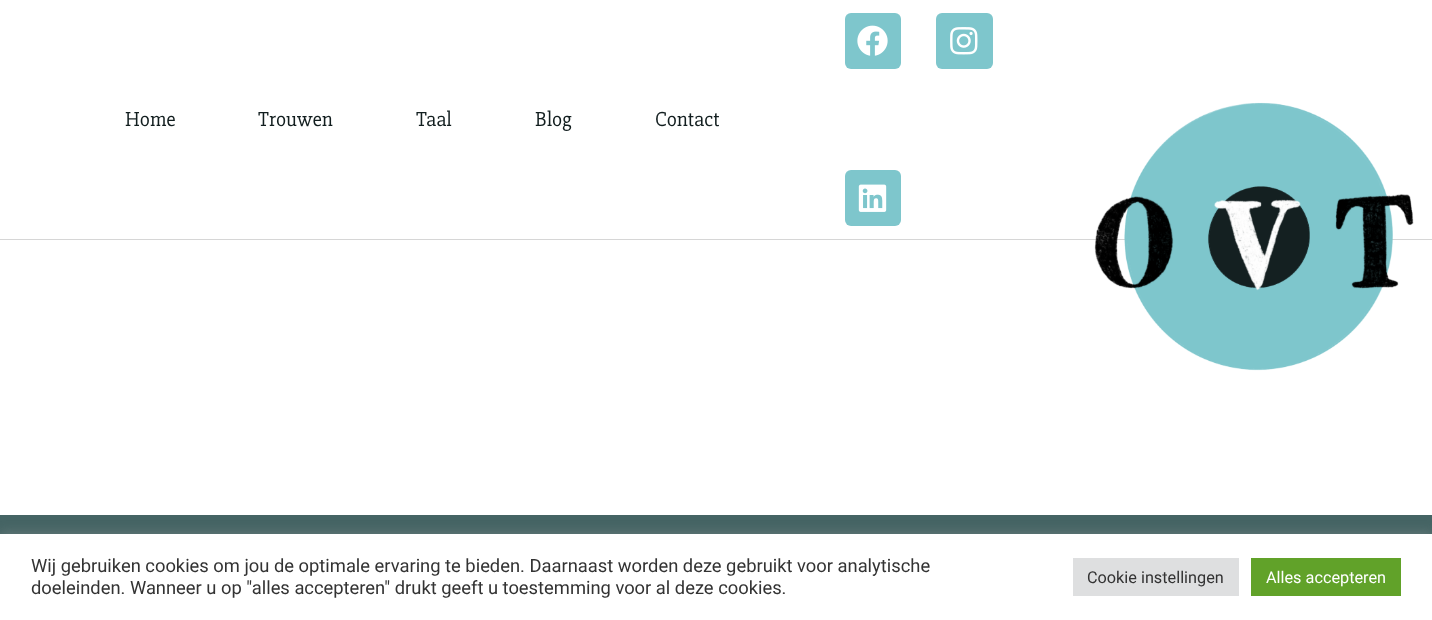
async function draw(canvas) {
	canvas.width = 1432;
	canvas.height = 620;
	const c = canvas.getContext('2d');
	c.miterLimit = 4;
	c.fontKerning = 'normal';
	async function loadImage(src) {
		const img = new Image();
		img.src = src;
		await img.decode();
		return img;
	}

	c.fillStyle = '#fff';
	c.fillRect(0, 0, 1432, 620);
	c.fillStyle = '#d6d6d6';
	c.fillRect(0, 239, 1432, 1);
	c.font = '21px "Slabo 27px"';
	c.fillStyle = '#121e1f';
	for (const [text, x, y] of [
		['Home', 125, 126],
		['Trouwen', 258, 126],
		['Taal', 416, 126],
		['Blog', 535, 126],
		['Contact', 655, 126],
	]) {
		c.fillText(text, x, y);
	}
	c.fillStyle = '#7ec6cc';
	c.beginPath();
	c.roundRect(845, 13, 56, 56, 6);
	c.fill();
	c.drawImage(await loadImage('img1.png'), 857, 25, 31, 31);
	c.beginPath();
	c.roundRect(936, 13, 57, 56, 6);
	c.fill();
	c.drawImage(await loadImage('img2.png'), 950, 27, 28, 28);
	c.beginPath();
	c.roundRect(845, 170, 56, 56, 6);
	c.fill();
	c.drawImage(await loadImage('img3.png'), 858, 184, 29, 28);
	c.drawImage(await loadImage('img4.png'), 1094, 102, 320, 269);
	c.fillStyle = '#456464';
	c.fillRect(0, 515, 1432, 19);
	c.fillStyle = '#acabab4d';
	c.filter = 'blur(6px)';
	c.beginPath();
	c.rect(0, 533, 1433, 86);
	c.fill();
	c.filter = 'none';
	c.fillStyle = '#fff';
	c.fillRect(0, 534, 1432, 86);
	c.font = '18.35px Roboto';
	c.fillStyle = '#333';
	c.fillText('Wij gebruiken cookies om jou de optimale ervaring te bieden. Daarnaast worden deze gebruikt voor analytische', 31, 572);
	c.fillText('doeleinden. Wanneer u op "alles accepteren" drukt geeft u toestemming voor al deze cookies.', 31, 594);
	c.fillStyle = '#dedfe0';
	c.fillRect(1073, 558, 166, 38);
	c.font = '16.25px Roboto';
	c.fillStyle = '#333';
	c.fillText('Cookie instellingen', 1087, 583);
	c.fillStyle = '#61a229';
	c.fillRect(1251, 558, 150, 38);
	c.fillStyle = '#fff';
	c.fillText('Alles accepteren', 1266, 583);
}

draw(document.querySelector('canvas'));
